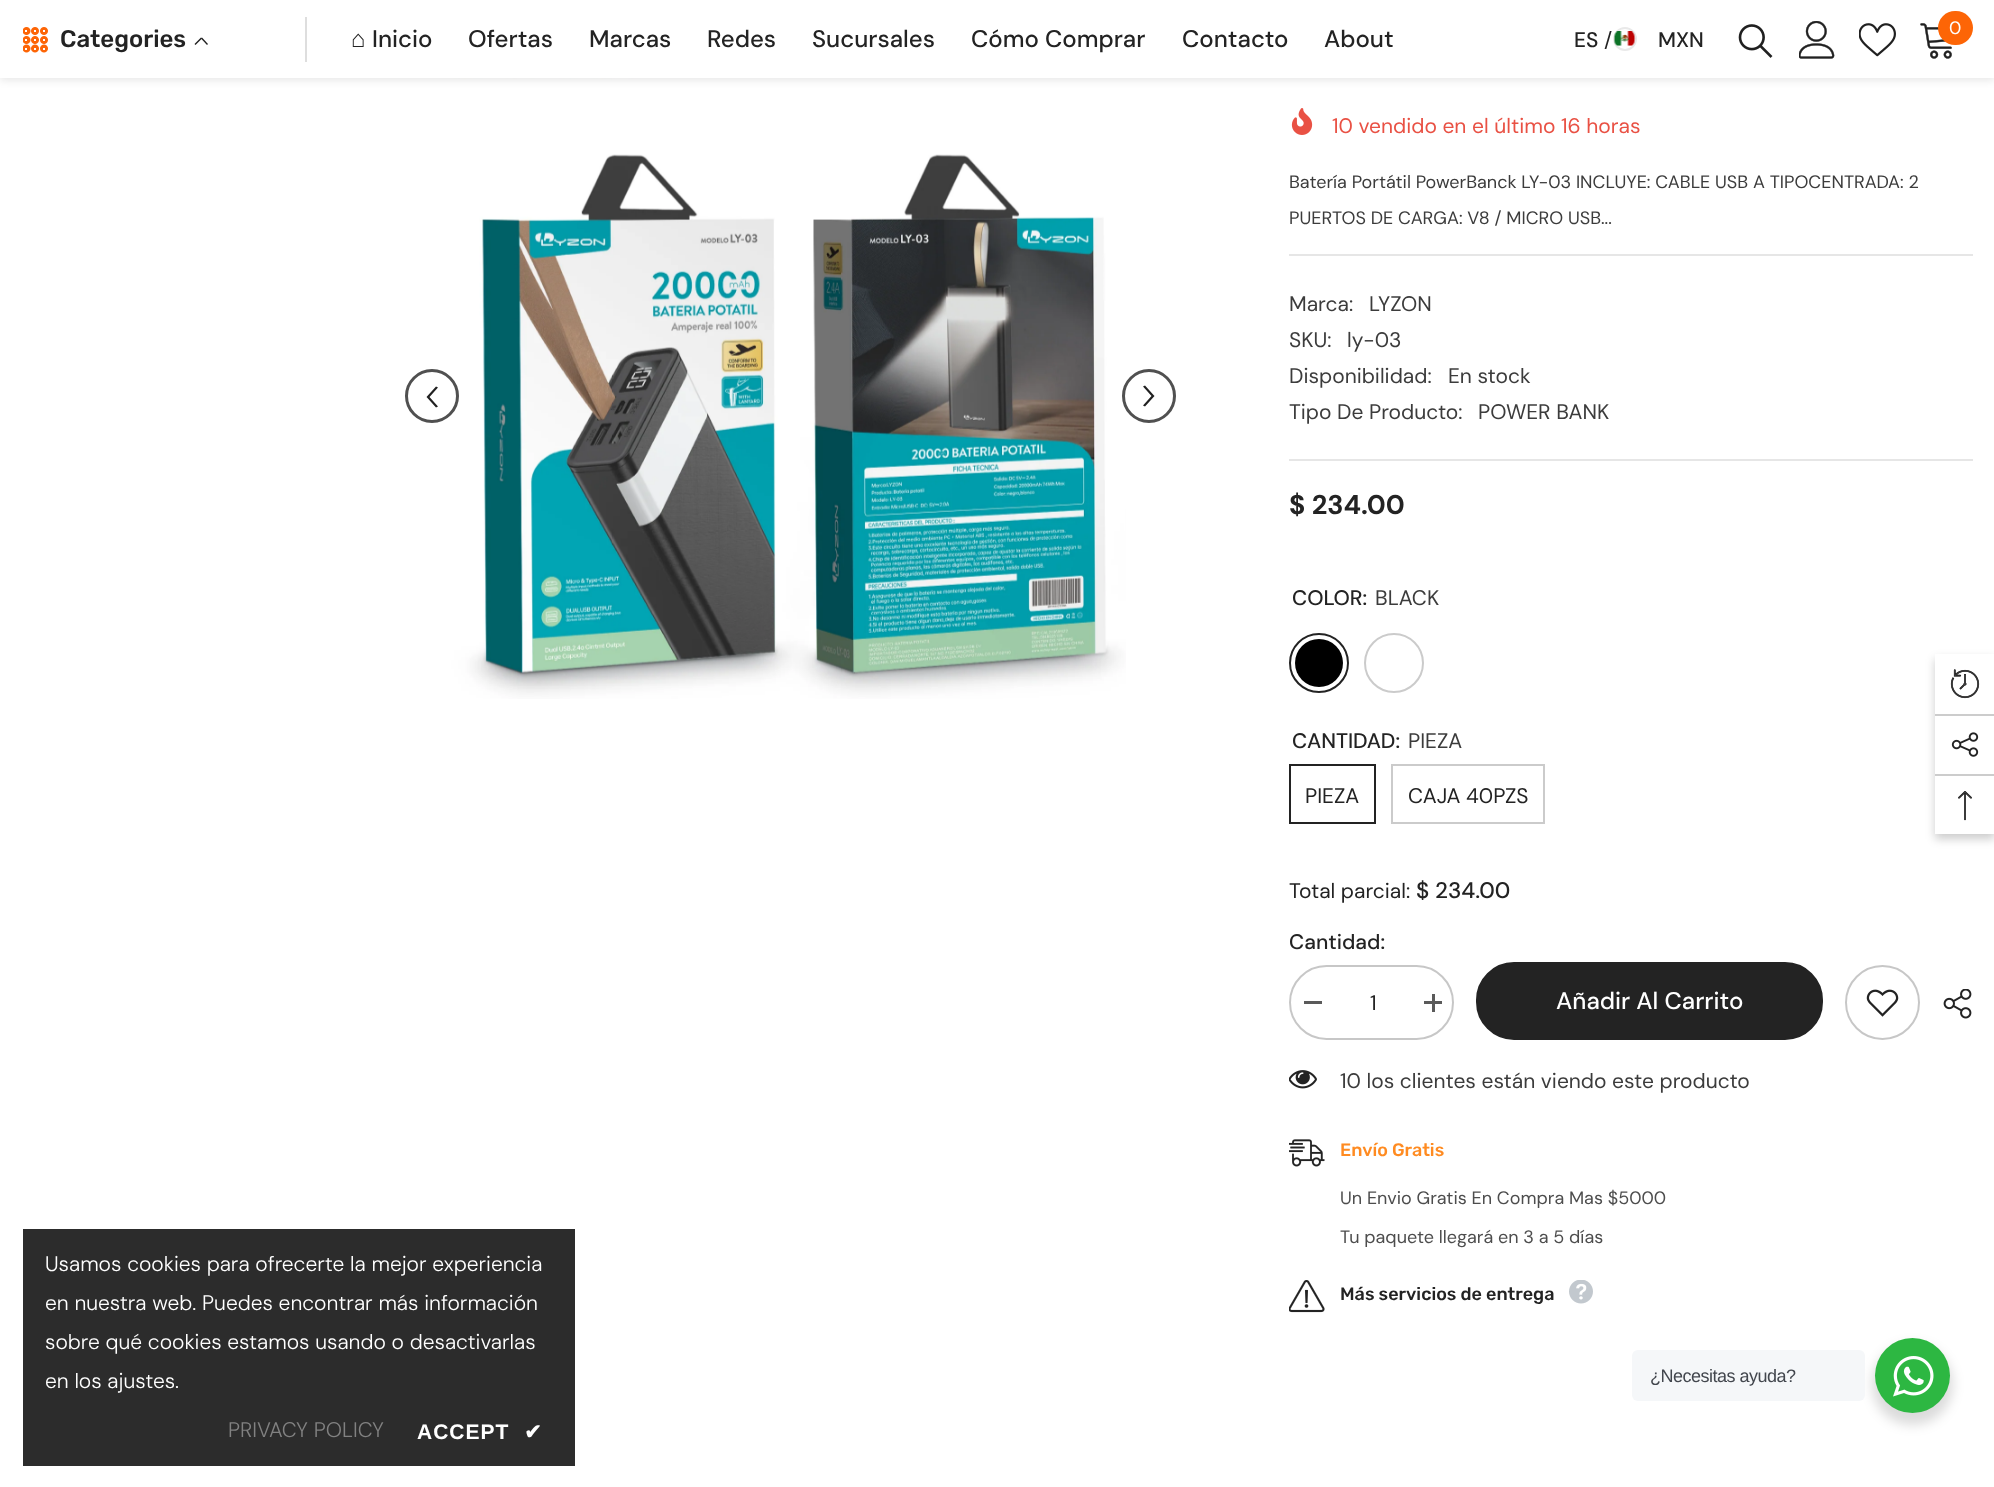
async function draw(canvas) {
	canvas.width = 1994;
	canvas.height = 1487;
	const c = canvas.getContext('2d');
	c.miterLimit = 4;
	c.fontKerning = 'normal';
	async function loadImage(src) {
		const img = new Image();
		img.src = src;
		await img.decode();
		return img;
	}

	c.fillStyle = '#fff';
	c.fillRect(0, 0, 1994, 1487);
	c.drawImage(await loadImage('img7.png'), 439, 78, 687, 621);
	c.fillStyle = '#0000001a';
	c.filter = 'blur(4.5px)';
	c.beginPath();
	c.rect(0, 2, 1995, 78);
	c.fill();
	c.filter = 'none';
	c.fillStyle = '#fff';
	c.fillRect(0, 0, 1994, 78);
	c.drawImage(await loadImage('img1.png'), 23, 27, 25, 26);
	c.font = '500 24px Rubik';
	c.fillStyle = '#232323';
	c.fillText('Categories', 60, 47);
	c.fillStyle = '#202020';
	c.beginPath();
	c.moveTo(194.5, 44);
	c.lineTo(201, 37.5);
	c.lineTo(202, 38.5);
	c.lineTo(195.5, 45);
	c.closePath();
	c.fill();
	c.beginPath();
	c.moveTo(207, 45);
	c.lineTo(201, 38.5);
	c.lineTo(202, 37.5);
	c.lineTo(208, 44);
	c.closePath();
	c.fill();
	c.fillStyle = '#dedede';
	c.fillRect(305, 17, 2, 45);
	c.font = '24px Liberation Serif';
	c.fillStyle = '#232323';
	c.fillText('⌂', 351, 47);
	c.font = '500 24px DM Sans';
	for (const [text, x, y] of [
		['Inicio', 372, 47],
		['Ofertas', 468, 47],
		['Marcas', 589, 47],
		['Redes', 707, 47],
		['Sucursales', 812, 47],
		['Cómo Comprar', 971, 47],
		['Contacto', 1182, 47],
		['About', 1324, 47],
	]) {
		c.fillText(text, x, y);
	}
	c.drawImage(await loadImage('img2.png'), 1738, 24, 35, 34);
	c.drawImage(await loadImage('img3.png'), 1799, 21, 36, 38);
	c.drawImage(await loadImage('img4.png'), 1859, 23, 37, 34);
	c.drawImage(await loadImage('img5.png'), 1920, 23, 32, 36);
	c.fillStyle = '#fd6506';
	c.beginPath();
	c.roundRect(1938, 11, 35, 34, 17);
	c.fill();
	c.font = '18px DM Sans';
	c.fillStyle = '#fff';
	c.fillText('0', 1949, 34);
	c.font = '500 21px DM Sans';
	c.fillStyle = '#232323';
	c.fillText('ES', 1574, 47);
	c.font = '21px DM Sans';
	c.fillText('/', 1604, 47);
	c.beginPath();
	c.arc(1625, 39, 11, 0, 2 * Math.PI);
	c.strokeStyle = '#e9e9e9';
	c.lineWidth = 2;
	c.stroke();
	c.drawImage(await loadImage('img6.png'), 1614, 31, 22, 15);
	c.font = '500 21px DM Sans';
	c.fillText('MXN', 1658, 47);
	c.beginPath();
	c.arc(432, 396, 25.5, 0, 2 * Math.PI);
	c.strokeStyle = '#505050';
	c.lineWidth = 3;
	c.stroke();
	c.fillStyle = '#212121';
	c.beginPath();
	c.moveTo(436, 407.5);
	c.lineTo(438, 406.5);
	c.lineTo(429.5, 397);
	c.lineTo(438, 387.5);
	c.lineTo(436, 386.5);
	c.lineTo(426.5, 397);
	c.lineTo(427, 397.5);
	c.closePath();
	c.fill();
	c.beginPath();
	c.arc(1149, 396, 25.5, 0, 2 * Math.PI);
	c.stroke();
	c.beginPath();
	c.moveTo(1145, 385.5);
	c.lineTo(1143, 386.5);
	c.lineTo(1151.5, 396);
	c.lineTo(1143, 405.5);
	c.lineTo(1145, 406.5);
	c.lineTo(1154.5, 396);
	c.lineTo(1154, 395.5);
	c.closePath();
	c.fill();
	c.drawImage(await loadImage('img8.png'), 1291, 108, 22, 27);
	c.font = '21px DM Sans';
	c.fillStyle = '#e95144';
	c.fillText('10 vendido en el último 16 horas', 1332, 133);
	c.font = '18px DM Sans';
	c.fillStyle = '#3c3c3c';
	c.fillText('Batería Portátil PowerBanck LY-03 INCLUYE: CABLE USB A TIPOCENTRADA: 2', 1289, 188);
	c.fillText('PUERTOS DE CARGA: V8 / MICRO USB...', 1289, 224);
	c.fillStyle = '#e6e6e6';
	c.fillRect(1289, 254, 684, 2);
	c.fillRect(1289, 459, 684, 2);
	c.font = '21px DM Sans';
	c.fillStyle = '#3c3c3c';
	for (const [text, x, y] of [
		['Marca:', 1289, 311],
		['LYZON', 1369, 311],
		['SKU:', 1289, 347],
		['ly-03', 1347, 347],
		['Disponibilidad:', 1289, 383],
		['En stock', 1448, 383],
		['Tipo De Producto:', 1289, 419],
		['POWER BANK', 1478, 419],
	]) {
		c.fillText(text, x, y);
	}
	c.font = 'bold 27px DM Sans';
	c.fillStyle = '#232323';
	c.fillText('$ 234.00', 1289, 514);
	c.font = '500 21px DM Sans';
	c.fillText('COLOR:', 1292, 605);
	c.font = '21px DM Sans';
	c.fillStyle = '#3c3c3c';
	c.fillText('BLACK', 1375, 605);
	c.beginPath();
	c.arc(1319, 663, 29, 0, 2 * Math.PI);
	c.strokeStyle = '#232323';
	c.lineWidth = 2;
	c.stroke();
	c.fillStyle = '#000';
	c.beginPath();
	c.arc(1319, 663, 24, 0, 2 * Math.PI);
	c.fill();
	c.beginPath();
	c.arc(1394, 663, 29, 0, 2 * Math.PI);
	c.strokeStyle = '#cbcbcb';
	c.stroke();
	c.font = '500 21px DM Sans';
	c.fillStyle = '#232323';
	c.fillText('CANTIDAD:', 1292, 748);
	c.font = '21px DM Sans';
	c.fillStyle = '#3c3c3c';
	c.fillText('PIEZA', 1408, 748);
	c.strokeStyle = '#232323';
	c.strokeRect(1290, 765, 85, 58);
	c.fillStyle = '#232323';
	c.fillText('PIEZA', 1305, 803);
	c.strokeStyle = '#cbcbcb';
	c.strokeRect(1392, 765, 152, 58);
	c.fillText('CAJA 40PZS', 1408, 803);
	c.fillText('Total parcial:', 1289, 898);
	c.font = '500 22.5px DM Sans';
	c.fillText('$ 234.00', 1416, 898);
	c.font = '500 21px DM Sans';
	c.fillText('Cantidad:', 1289, 949);
	c.beginPath();
	c.roundRect(1290, 966, 163, 73, 36.5);
	c.strokeStyle = '#c7c7c7';
	c.stroke();
	c.fillStyle = '#5a5a5a';
	c.fillRect(1304, 1001, 18, 3);
	c.font = '21px DM Sans';
	c.fillStyle = '#232323';
	c.fillText('1', 1370, 1010);
	c.fillStyle = '#5a5a5a';
	c.fillRect(1424, 1001, 18, 3);
	c.fillRect(1432, 994, 3, 18);
	c.fillStyle = '#232323';
	c.beginPath();
	c.roundRect(1477, 963, 345, 76, 37);
	c.fill();
	c.strokeStyle = '#232323';
	c.stroke();
	c.font = '500 24px DM Sans';
	c.fillStyle = '#fff';
	c.fillText('Añadir Al Carrito', 1556, 1009);
	c.beginPath();
	c.arc(1882.5, 1002.5, 36.5, 0, 2 * Math.PI);
	c.strokeStyle = '#c7c7c7';
	c.stroke();
	c.drawImage(await loadImage('img9.png'), 1866, 989, 33, 28);
	c.drawImage(await loadImage('img10.png'), 1943, 989, 29, 30);
	c.drawImage(await loadImage('img11.png'), 1289, 1070, 28, 19);
	c.font = '21px DM Sans';
	c.fillStyle = '#3c3c3c';
	c.fillText('10 los clientes están viendo este producto', 1340, 1088);
	c.drawImage(await loadImage('img12.png'), 1289, 1139, 36, 28);
	c.font = '500 18px Rubik';
	c.fillStyle = '#ff8b21';
	c.fillText('Envío Gratis', 1340, 1156);
	c.font = '18px DM Sans';
	c.fillStyle = '#4d4d4d';
	c.fillText('Un Envio Gratis En Compra Mas $5000', 1340, 1204);
	c.fillText('Tu paquete llegará en 3 a 5 días', 1340, 1243);
	c.drawImage(await loadImage('img13.png'), 1289, 1280, 36, 33);
	c.font = '500 18px Rubik';
	c.fillStyle = '#232323';
	c.fillText('Más servicios de entrega', 1340, 1300);
	c.drawImage(await loadImage('img14.png'), 1569, 1280, 24, 24);
	c.save();
	c.beginPath();
	c.moveTo(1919, 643);
	c.lineTo(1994, 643);
	c.lineTo(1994, 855);
	c.lineTo(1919, 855);
	c.closePath();
	c.moveTo(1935, 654);
	c.lineTo(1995, 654);
	c.lineTo(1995, 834);
	c.lineTo(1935, 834);
	c.closePath();
	c.clip('evenodd');
	c.fillStyle = '#00000033';
	c.filter = 'blur(5px)';
	c.beginPath();
	c.rect(1935, 659, 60, 180);
	c.fill();
	c.filter = 'none';
	c.restore();
	c.drawImage(await loadImage('img15.png'), 1950, 669, 30, 30);
	c.fillStyle = '#ccc';
	c.fillRect(1935, 714, 59, 2);
	c.drawImage(await loadImage('img16.png'), 1951, 732, 28, 25);
	c.fillRect(1935, 774, 59, 2);
	c.drawImage(await loadImage('img17.png'), 1958, 791, 14, 30);
	c.fillStyle = '#2c2c2c';
	c.fillRect(23, 1229, 552, 237);
	c.font = '300 21px DM Sans';
	c.fillStyle = '#fff';
	for (const [text, x, y] of [
		['Usamos cookies para ofrecerte la mejor experiencia', 45, 1271],
		['en nuestra web. Puedes encontrar más información', 45, 1310],
		['sobre qué cookies estamos usando o desactivarlas', 45, 1349],
		['en los ajustes.', 45, 1388],
	]) {
		c.fillText(text, x, y);
	}
	c.fillStyle = '#818181';
	c.fillText('PRIVACY POLICY', 228, 1437);
	c.letterSpacing = '1px';
	c.font = 'bold 21px Liberation Sans';
	c.fillStyle = '#fff';
	c.fillText('ACCEPT', 417, 1439);
	c.font = 'bold 21px DejaVu Sans';
	c.fillText('✔', 524, 1439);
	c.fillStyle = '#00000024';
	c.filter = 'blur(6px)';
	c.beginPath();
	c.roundRect(1872, 1344, 81, 81, 40.5);
	c.fill();
	c.filter = 'none';
	c.fillStyle = '#f5f7f9';
	c.beginPath();
	c.roundRect(1632, 1350, 233, 51, 6);
	c.fill();
	c.letterSpacing = '-0.5px';
	c.font = '18px Liberation Sans';
	c.fillStyle = '#43474e';
	c.fillText('¿Necesitas ayuda?', 1650, 1382);
	c.fillStyle = '#2db742';
	c.beginPath();
	c.arc(1912.5, 1375.5, 37.5, 0, 2 * Math.PI);
	c.fill();
	c.drawImage(await loadImage('img18.png'), 1893, 1356, 41, 41);
}

draw(document.querySelector('canvas'));
